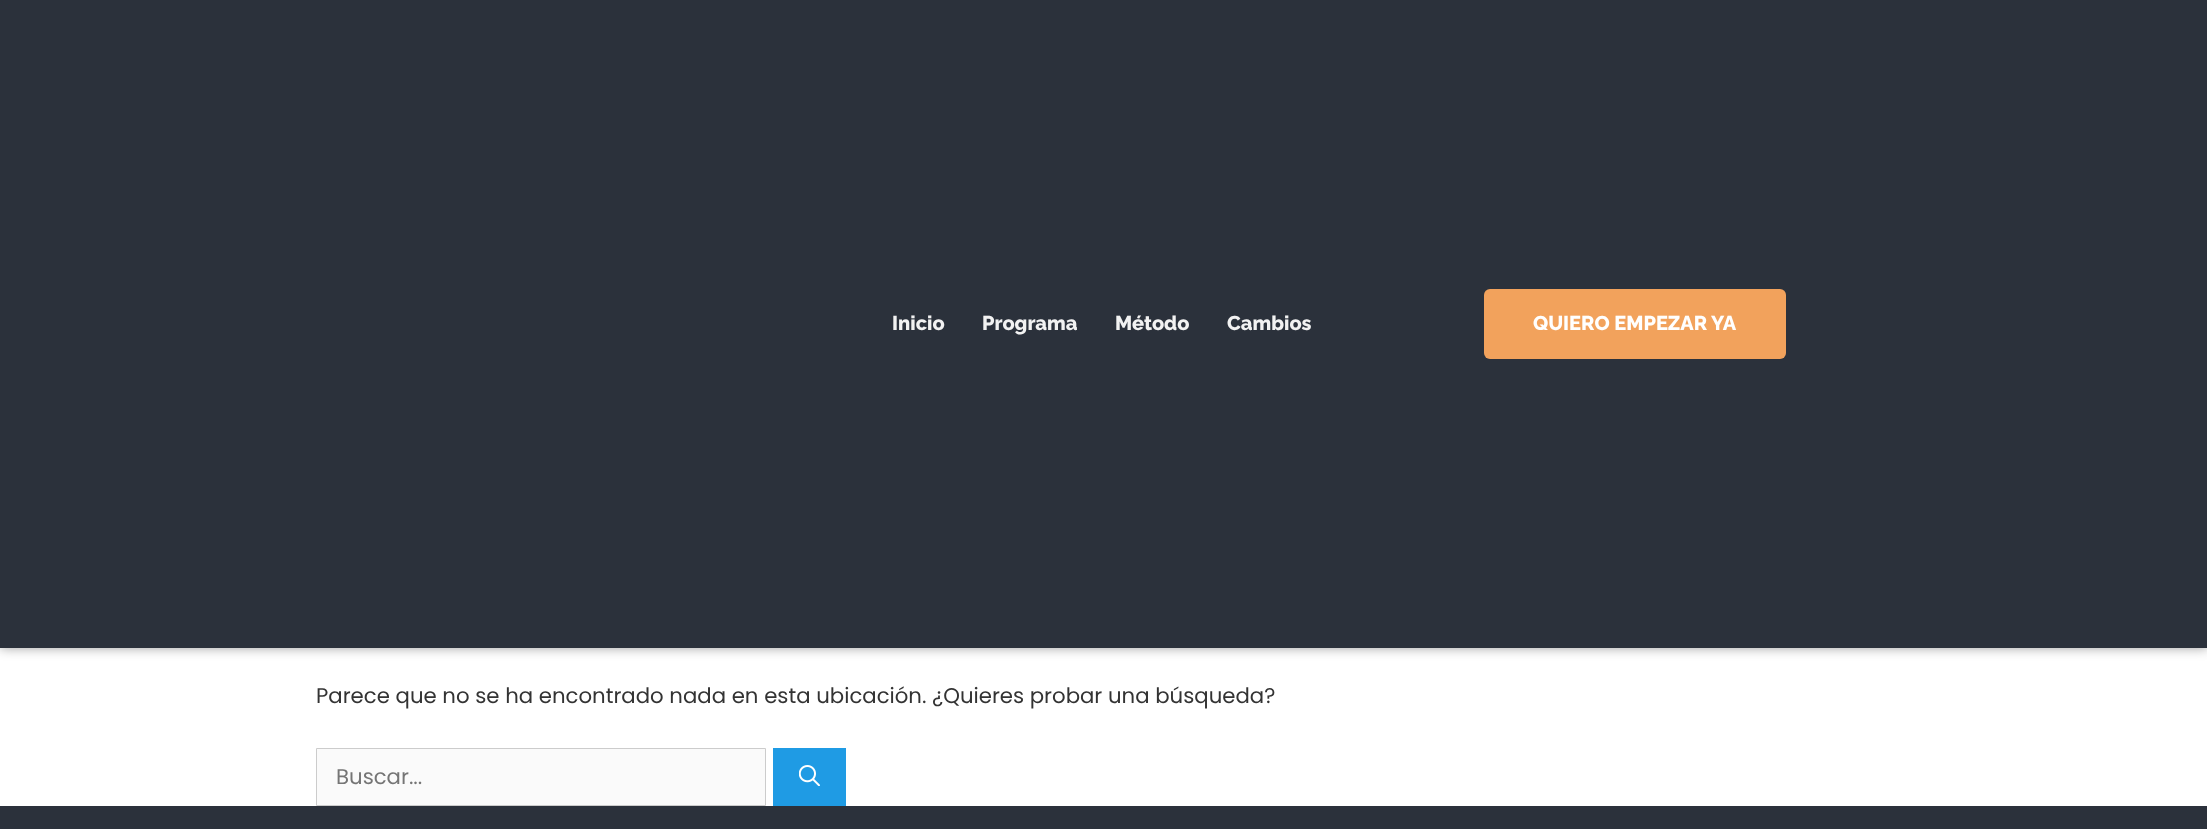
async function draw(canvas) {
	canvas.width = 2207;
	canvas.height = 829;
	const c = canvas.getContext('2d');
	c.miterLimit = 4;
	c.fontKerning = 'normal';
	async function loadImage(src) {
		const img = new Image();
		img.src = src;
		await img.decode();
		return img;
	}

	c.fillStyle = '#fff';
	c.fillRect(0, 0, 2207, 829);
	c.fillStyle = '#00000061';
	c.filter = 'blur(6px)';
	c.beginPath();
	c.rect(0, 0, 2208, 648);
	c.fill();
	c.filter = 'none';
	c.fillStyle = '#2b313b';
	c.fillRect(0, 0, 2207, 648);
	c.font = '800 20px Raleway';
	c.fillStyle = '#f2f2f2';
	for (const [text, x, y] of [
		['Inicio', 892, 330],
		['Programa', 982, 330],
		['Método', 1115, 330],
		['Cambios', 1227, 330],
	]) {
		c.fillText(text, x, y);
	}
	c.fillStyle = '#f2a25c';
	c.beginPath();
	c.roundRect(1484, 289, 302, 70, 6);
	c.fill();
	c.fillStyle = '#fff';
	c.fillText('QUIERO EMPEZAR YA', 1533, 330);
	c.font = '21.25px Poppins';
	c.fillStyle = '#333';
	c.fillText('Parece que no se ha encontrado nada en esta ubicación. ¿Quieres probar una búsqueda?', 316, 703);
	c.fillStyle = '#fafafa';
	c.beginPath();
	c.rect(316.5, 748.5, 449, 57);
	c.fill();
	c.strokeStyle = '#ccc';
	c.stroke();
	c.fillStyle = '#757575';
	c.fillText('Buscar...', 336, 784);
	c.fillStyle = '#1f9be4';
	c.fillRect(773, 748, 73, 58);
	c.drawImage(await loadImage('img1.png'), 799, 765, 21, 21);
	c.fillStyle = '#2b313b';
	c.fillRect(0, 806, 2207, 23);
}

draw(document.querySelector('canvas'));
